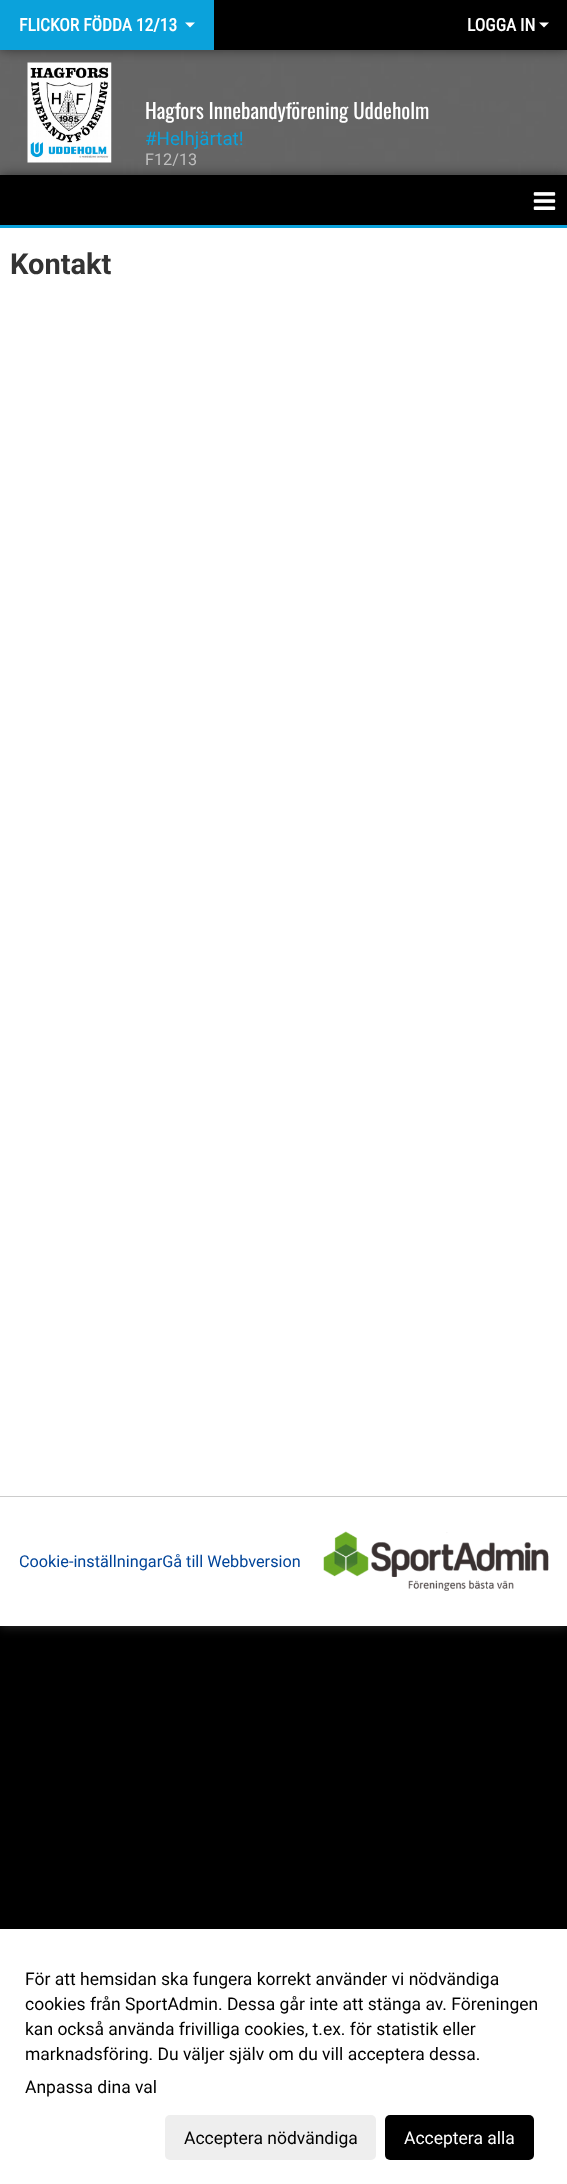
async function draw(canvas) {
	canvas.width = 567;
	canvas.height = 2184;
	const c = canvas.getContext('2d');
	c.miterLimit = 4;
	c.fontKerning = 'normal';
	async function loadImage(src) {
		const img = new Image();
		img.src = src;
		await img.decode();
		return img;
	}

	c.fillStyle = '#fff';
	c.fillRect(0, 0, 567, 2184);
	c.drawImage(await loadImage('img1.png'), 0, 50, 567, 1879);
	c.fillStyle = '#333';
	c.filter = 'blur(6px)';
	c.beginPath();
	c.rect(0, 0, 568, 50);
	c.fill();
	c.filter = 'none';
	c.fillStyle = '#000';
	c.fillRect(214, 0, 353, 50);
	c.fillStyle = '#0ba2db';
	c.fillRect(0, 0, 214, 50);
	c.font = 'bold 17.5px Roboto Condensed';
	c.fillStyle = '#fff';
	c.fillText('FLICKOR FÖDDA 12/13', 19, 31);
	c.beginPath();
	c.moveTo(185, 22.5);
	c.lineTo(195, 22.5);
	c.lineTo(190, 27.5);
	c.closePath();
	c.fill();
	c.fillText('LOGGA IN', 467, 31);
	c.beginPath();
	c.moveTo(539, 22.5);
	c.lineTo(549, 22.5);
	c.lineTo(544, 27.5);
	c.closePath();
	c.fill();
	c.fillStyle = '#333';
	c.filter = 'blur(6px)';
	c.beginPath();
	c.rect(0, 175, 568, 1451);
	c.fill();
	c.filter = 'none';
	c.drawImage(await loadImage('img2.png'), 27, 62, 85, 101);
	c.font = '21px Oswald';
	c.fillStyle = '#fff';
	c.fillText('Hagfors Innebandyförening Uddeholm', 145, 119);
	c.font = '18.75px Roboto';
	c.fillStyle = '#0ba2db';
	c.fillText('#Helhjärtat!', 145, 145);
	c.font = '16.25px Roboto';
	c.fillStyle = '#bfbfbf';
	c.fillText('F12/13', 145, 165);
	for (const [x, y, w, h, color] of [
		[0, 228, 567, 1268, '#fff'],
		[0, 175, 567, 50, '#000'],
		[0, 225, 567, 3, '#0ba2db'],
	]) {
		c.fillStyle = color;
		c.fillRect(x, y, w, h);
	}
	c.drawImage(await loadImage('img3.png'), 533, 192, 23, 18);
	c.font = 'bold 29px Roboto';
	c.fillStyle = '#333';
	c.fillText('Kontakt', 10, 274);
	c.fillStyle = '#fff';
	c.fillRect(0, 1497, 567, 129);
	c.fillStyle = '#ccc';
	c.fillRect(0, 1496, 567, 1);
	c.font = '16.25px Roboto';
	c.fillStyle = '#049';
	c.fillText('Cookie-inställningarGå till Webbversion', 19, 1567);
	c.drawImage(await loadImage('img4.png'), 323, 1531, 226, 60);
	c.font = '17.5px Roboto';
	c.fillStyle = '#000';
	for (const [text, x, y] of [
		['För att hemsidan ska fungera korrekt använder vi nödvändiga', 25, 1985],
		['cookies från SportAdmin. Dessa går inte att stänga av. Föreningen', 25, 2010],
		['kan också använda frivilliga cookies, t.ex. för statistik eller', 25, 2035],
		['marknadsföring. Du väljer själv om du vill acceptera dessa.', 25, 2060],
		['Anpassa dina val', 25, 2093],
	]) {
		c.fillText(text, x, y);
	}
	c.fillStyle = '#eee';
	c.beginPath();
	c.roundRect(165, 2115, 211, 45, 5);
	c.fill();
	c.fillStyle = '#000';
	c.fillText('Acceptera nödvändiga', 184, 2144);
	c.beginPath();
	c.roundRect(385, 2115, 149, 45, 5);
	c.fill();
	c.fillStyle = '#fff';
	c.fillText('Acceptera alla', 404, 2144);
}

draw(document.querySelector('canvas'));
